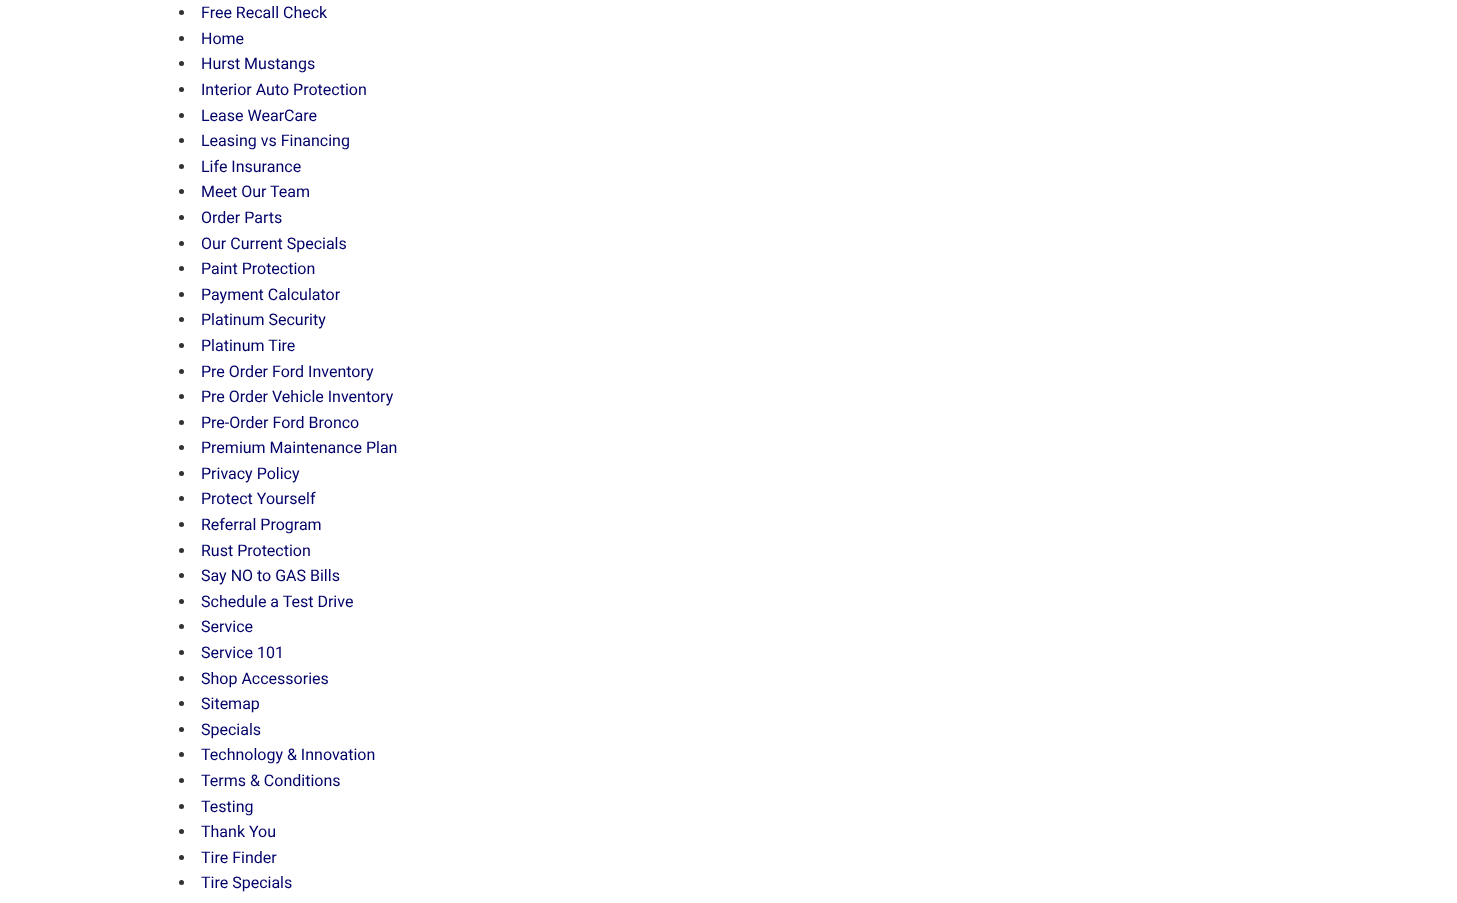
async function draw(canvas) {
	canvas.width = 1457;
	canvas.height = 903;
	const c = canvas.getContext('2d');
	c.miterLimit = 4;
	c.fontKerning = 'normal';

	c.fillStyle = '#fff';
	c.fillRect(0, 0, 1457, 903);
	c.fillStyle = '#333';
	c.beginPath();
	c.arc(181.5, 12.5, 2.5, 0, 2 * Math.PI);
	c.fill();
	c.font = '16px Roboto';
	c.fillStyle = '#000068';
	c.fillText('Free Recall Check', 201, 18);
	c.fillStyle = '#333';
	c.beginPath();
	c.arc(181.5, 38.5, 2.5, 0, 2 * Math.PI);
	c.fill();
	c.fillStyle = '#000068';
	c.fillText('Home', 201, 44);
	c.fillStyle = '#333';
	c.beginPath();
	c.arc(181.5, 63.5, 2.5, 0, 2 * Math.PI);
	c.fill();
	c.fillStyle = '#000068';
	c.fillText('Hurst Mustangs', 201, 69);
	c.fillStyle = '#333';
	c.beginPath();
	c.arc(181.5, 89.5, 2.5, 0, 2 * Math.PI);
	c.fill();
	c.fillStyle = '#000068';
	c.fillText('Interior Auto Protection', 201, 95);
	c.fillStyle = '#333';
	c.beginPath();
	c.arc(181.5, 115.5, 2.5, 0, 2 * Math.PI);
	c.fill();
	c.fillStyle = '#000068';
	c.fillText('Lease WearCare', 201, 121);
	c.fillStyle = '#333';
	c.beginPath();
	c.arc(181.5, 140.5, 2.5, 0, 2 * Math.PI);
	c.fill();
	c.fillStyle = '#000068';
	c.fillText('Leasing vs Financing', 201, 146);
	c.fillStyle = '#333';
	c.beginPath();
	c.arc(181.5, 166.5, 2.5, 0, 2 * Math.PI);
	c.fill();
	c.fillStyle = '#000068';
	c.fillText('Life Insurance', 201, 172);
	c.fillStyle = '#333';
	c.beginPath();
	c.arc(181.5, 191.5, 2.5, 0, 2 * Math.PI);
	c.fill();
	c.fillStyle = '#000068';
	c.fillText('Meet Our Team', 201, 197);
	c.fillStyle = '#333';
	c.beginPath();
	c.arc(181.5, 217.5, 2.5, 0, 2 * Math.PI);
	c.fill();
	c.fillStyle = '#000068';
	c.fillText('Order Parts', 201, 223);
	c.fillStyle = '#333';
	c.beginPath();
	c.arc(181.5, 243.5, 2.5, 0, 2 * Math.PI);
	c.fill();
	c.fillStyle = '#000068';
	c.fillText('Our Current Specials', 201, 249);
	c.fillStyle = '#333';
	c.beginPath();
	c.arc(181.5, 268.5, 2.5, 0, 2 * Math.PI);
	c.fill();
	c.fillStyle = '#000068';
	c.fillText('Paint Protection', 201, 274);
	c.fillStyle = '#333';
	c.beginPath();
	c.arc(181.5, 294.5, 2.5, 0, 2 * Math.PI);
	c.fill();
	c.fillStyle = '#000068';
	c.fillText('Payment Calculator', 201, 300);
	c.fillStyle = '#333';
	c.beginPath();
	c.arc(181.5, 319.5, 2.5, 0, 2 * Math.PI);
	c.fill();
	c.fillStyle = '#000068';
	c.fillText('Platinum Security', 201, 325);
	c.fillStyle = '#333';
	c.beginPath();
	c.arc(181.5, 345.5, 2.5, 0, 2 * Math.PI);
	c.fill();
	c.fillStyle = '#000068';
	c.fillText('Platinum Tire', 201, 351);
	c.fillStyle = '#333';
	c.beginPath();
	c.arc(181.5, 371.5, 2.5, 0, 2 * Math.PI);
	c.fill();
	c.fillStyle = '#000068';
	c.fillText('Pre Order Ford Inventory', 201, 377);
	c.fillStyle = '#333';
	c.beginPath();
	c.arc(181.5, 396.5, 2.5, 0, 2 * Math.PI);
	c.fill();
	c.fillStyle = '#000068';
	c.fillText('Pre Order Vehicle Inventory', 201, 402);
	c.fillStyle = '#333';
	c.beginPath();
	c.arc(181.5, 422.5, 2.5, 0, 2 * Math.PI);
	c.fill();
	c.fillStyle = '#000068';
	c.fillText('Pre-Order Ford Bronco', 201, 428);
	c.fillStyle = '#333';
	c.beginPath();
	c.arc(181.5, 447.5, 2.5, 0, 2 * Math.PI);
	c.fill();
	c.fillStyle = '#000068';
	c.fillText('Premium Maintenance Plan', 201, 453);
	c.fillStyle = '#333';
	c.beginPath();
	c.arc(181.5, 473.5, 2.5, 0, 2 * Math.PI);
	c.fill();
	c.fillStyle = '#000068';
	c.fillText('Privacy Policy', 201, 479);
	c.fillStyle = '#333';
	c.beginPath();
	c.arc(181.5, 498.5, 2.5, 0, 2 * Math.PI);
	c.fill();
	c.fillStyle = '#000068';
	c.fillText('Protect Yourself', 201, 504);
	c.fillStyle = '#333';
	c.beginPath();
	c.arc(181.5, 524.5, 2.5, 0, 2 * Math.PI);
	c.fill();
	c.fillStyle = '#000068';
	c.fillText('Referral Program', 201, 530);
	c.fillStyle = '#333';
	c.beginPath();
	c.arc(181.5, 550.5, 2.5, 0, 2 * Math.PI);
	c.fill();
	c.fillStyle = '#000068';
	c.fillText('Rust Protection', 201, 556);
	c.fillStyle = '#333';
	c.beginPath();
	c.arc(181.5, 575.5, 2.5, 0, 2 * Math.PI);
	c.fill();
	c.fillStyle = '#000068';
	c.fillText('Say NO to GAS Bills', 201, 581);
	c.fillStyle = '#333';
	c.beginPath();
	c.arc(181.5, 601.5, 2.5, 0, 2 * Math.PI);
	c.fill();
	c.fillStyle = '#000068';
	c.fillText('Schedule a Test Drive', 201, 607);
	c.fillStyle = '#333';
	c.beginPath();
	c.arc(181.5, 626.5, 2.5, 0, 2 * Math.PI);
	c.fill();
	c.fillStyle = '#000068';
	c.fillText('Service', 201, 632);
	c.fillStyle = '#333';
	c.beginPath();
	c.arc(181.5, 652.5, 2.5, 0, 2 * Math.PI);
	c.fill();
	c.fillStyle = '#000068';
	c.fillText('Service 101', 201, 658);
	c.fillStyle = '#333';
	c.beginPath();
	c.arc(181.5, 678.5, 2.5, 0, 2 * Math.PI);
	c.fill();
	c.fillStyle = '#000068';
	c.fillText('Shop Accessories', 201, 684);
	c.fillStyle = '#333';
	c.beginPath();
	c.arc(181.5, 703.5, 2.5, 0, 2 * Math.PI);
	c.fill();
	c.fillStyle = '#000068';
	c.fillText('Sitemap', 201, 709);
	c.fillStyle = '#333';
	c.beginPath();
	c.arc(181.5, 729.5, 2.5, 0, 2 * Math.PI);
	c.fill();
	c.fillStyle = '#000068';
	c.fillText('Specials', 201, 735);
	c.fillStyle = '#333';
	c.beginPath();
	c.arc(181.5, 754.5, 2.5, 0, 2 * Math.PI);
	c.fill();
	c.fillStyle = '#000068';
	c.fillText('Technology & Innovation', 201, 760);
	c.fillStyle = '#333';
	c.beginPath();
	c.arc(181.5, 780.5, 2.5, 0, 2 * Math.PI);
	c.fill();
	c.fillStyle = '#000068';
	c.fillText('Terms & Conditions', 201, 786);
	c.fillStyle = '#333';
	c.beginPath();
	c.arc(181.5, 806.5, 2.5, 0, 2 * Math.PI);
	c.fill();
	c.fillStyle = '#000068';
	c.fillText('Testing', 201, 812);
	c.fillStyle = '#333';
	c.beginPath();
	c.arc(181.5, 831.5, 2.5, 0, 2 * Math.PI);
	c.fill();
	c.fillStyle = '#000068';
	c.fillText('Thank You', 201, 837);
	c.fillStyle = '#333';
	c.beginPath();
	c.arc(181.5, 857.5, 2.5, 0, 2 * Math.PI);
	c.fill();
	c.fillStyle = '#000068';
	c.fillText('Tire Finder', 201, 863);
	c.fillStyle = '#333';
	c.beginPath();
	c.arc(181.5, 882.5, 2.5, 0, 2 * Math.PI);
	c.fill();
	c.fillStyle = '#000068';
	c.fillText('Tire Specials', 201, 888);
}

draw(document.querySelector('canvas'));
